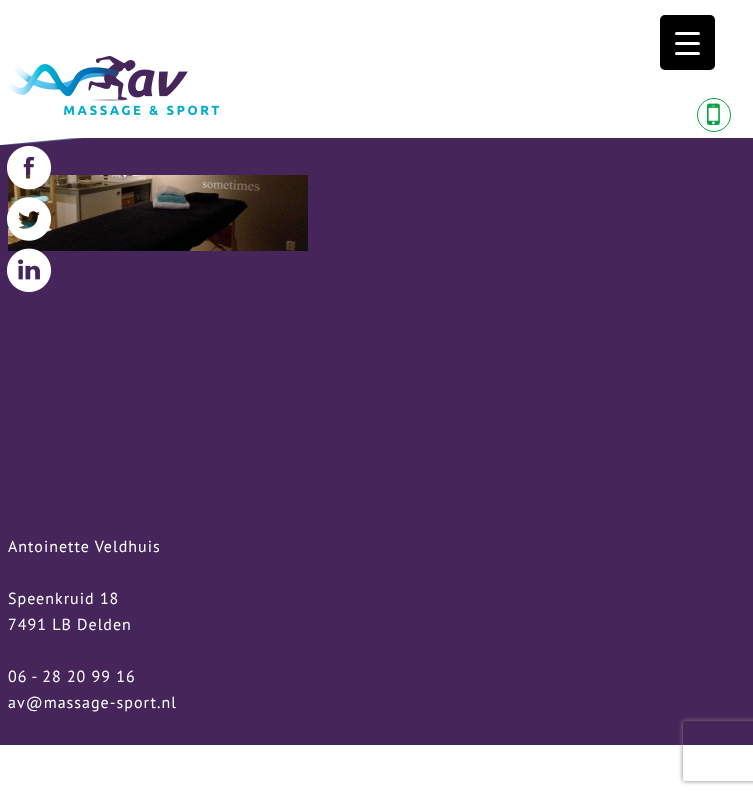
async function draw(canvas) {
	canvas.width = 753;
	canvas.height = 795;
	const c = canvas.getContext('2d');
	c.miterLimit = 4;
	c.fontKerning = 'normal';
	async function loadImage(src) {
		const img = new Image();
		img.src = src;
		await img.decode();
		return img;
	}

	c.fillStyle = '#fff';
	c.fillRect(0, 0, 753, 795);
	c.fillStyle = '#000';
	c.beginPath();
	c.roundRect(660, 15, 55, 55, 5);
	c.fill();
	c.fillStyle = '#fff';
	c.beginPath();
	c.roundRect(675, 42, 25, 3, 1.5);
	c.fill();
	c.beginPath();
	c.roundRect(675, 32, 25, 3, 1.5);
	c.fill();
	c.beginPath();
	c.roundRect(675, 52, 25, 3, 1.5);
	c.fill();
	c.drawImage(await loadImage('img1.png'), 9, 56, 210, 59);
	c.beginPath();
	c.arc(714, 115, 16.5, 0, 2 * Math.PI);
	c.strokeStyle = '#0aa245';
	c.stroke();
	c.drawImage(await loadImage('img2.png'), 707, 103, 13, 22);
	c.drawImage(await loadImage('img3.png'), 1, 138, 752, 7);
	c.fillStyle = '#46255a';
	c.fillRect(0, 145, 753, 600);
	c.drawImage(await loadImage('img4.png'), 8, 175, 300, 76);
	c.drawImage(await loadImage('img5.png'), 7, 146, 44, 44);
	c.drawImage(await loadImage('img6.png'), 7, 197, 44, 44);
	c.drawImage(await loadImage('img7.png'), 7, 248, 44, 44);
	c.letterSpacing = '1px';
	c.font = '16px PT Sans';
	c.fillStyle = '#fff';
	for (const [text, x, y] of [
		['Antoinette Veldhuis', 8, 552],
		['Speenkruid 18', 8, 604],
		['7491 LB Delden', 8, 630],
		['06 - 28 20 99 16', 8, 682],
		['av@massage-sport.nl', 8, 708],
	]) {
		c.fillText(text, x, y);
	}
	c.save();
	c.beginPath();
	c.moveTo(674, 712);
	c.lineTo(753, 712);
	c.lineTo(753, 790);
	c.lineTo(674, 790);
	c.closePath();
	c.moveTo(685, 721);
	c.lineTo(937, 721);
	c.bezierCurveTo(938, 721, 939, 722, 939, 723);
	c.lineTo(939, 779);
	c.bezierCurveTo(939, 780, 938, 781, 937, 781);
	c.lineTo(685, 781);
	c.bezierCurveTo(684, 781, 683, 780, 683, 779);
	c.lineTo(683, 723);
	c.bezierCurveTo(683, 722, 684, 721, 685, 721);
	c.closePath();
	c.clip('evenodd');
	c.fillStyle = '#808080';
	c.filter = 'blur(2.5px)';
	c.beginPath();
	c.roundRect(683, 721, 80, 60, 2);
	c.fill();
	c.filter = 'none';
	c.restore();
}

draw(document.querySelector('canvas'));
